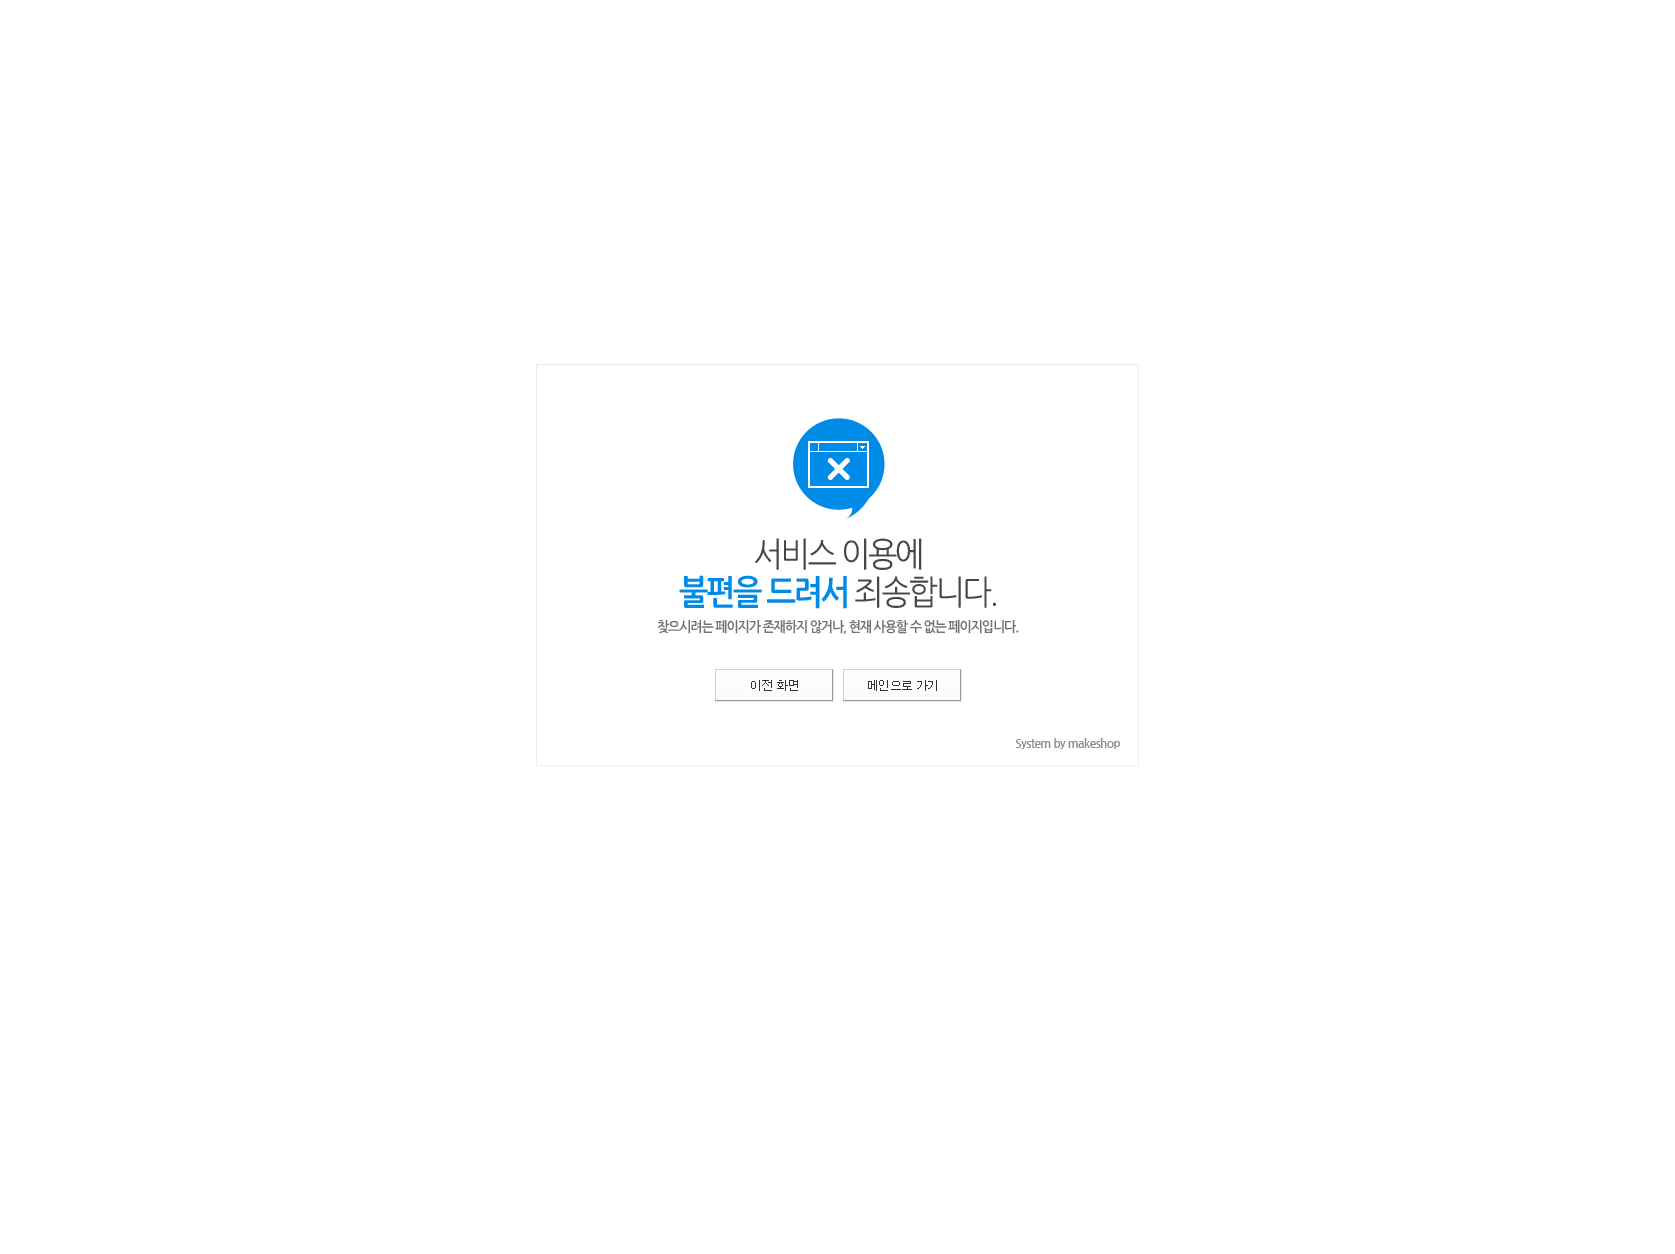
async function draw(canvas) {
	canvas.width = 1675;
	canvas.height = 1254;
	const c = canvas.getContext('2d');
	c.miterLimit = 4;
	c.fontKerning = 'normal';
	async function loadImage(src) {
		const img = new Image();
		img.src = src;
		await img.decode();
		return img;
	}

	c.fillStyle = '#fff';
	c.fillRect(0, 0, 1675, 1254);
	c.drawImage(await loadImage('img1.png'), 536, 364, 603, 402);
}

draw(document.querySelector('canvas'));
